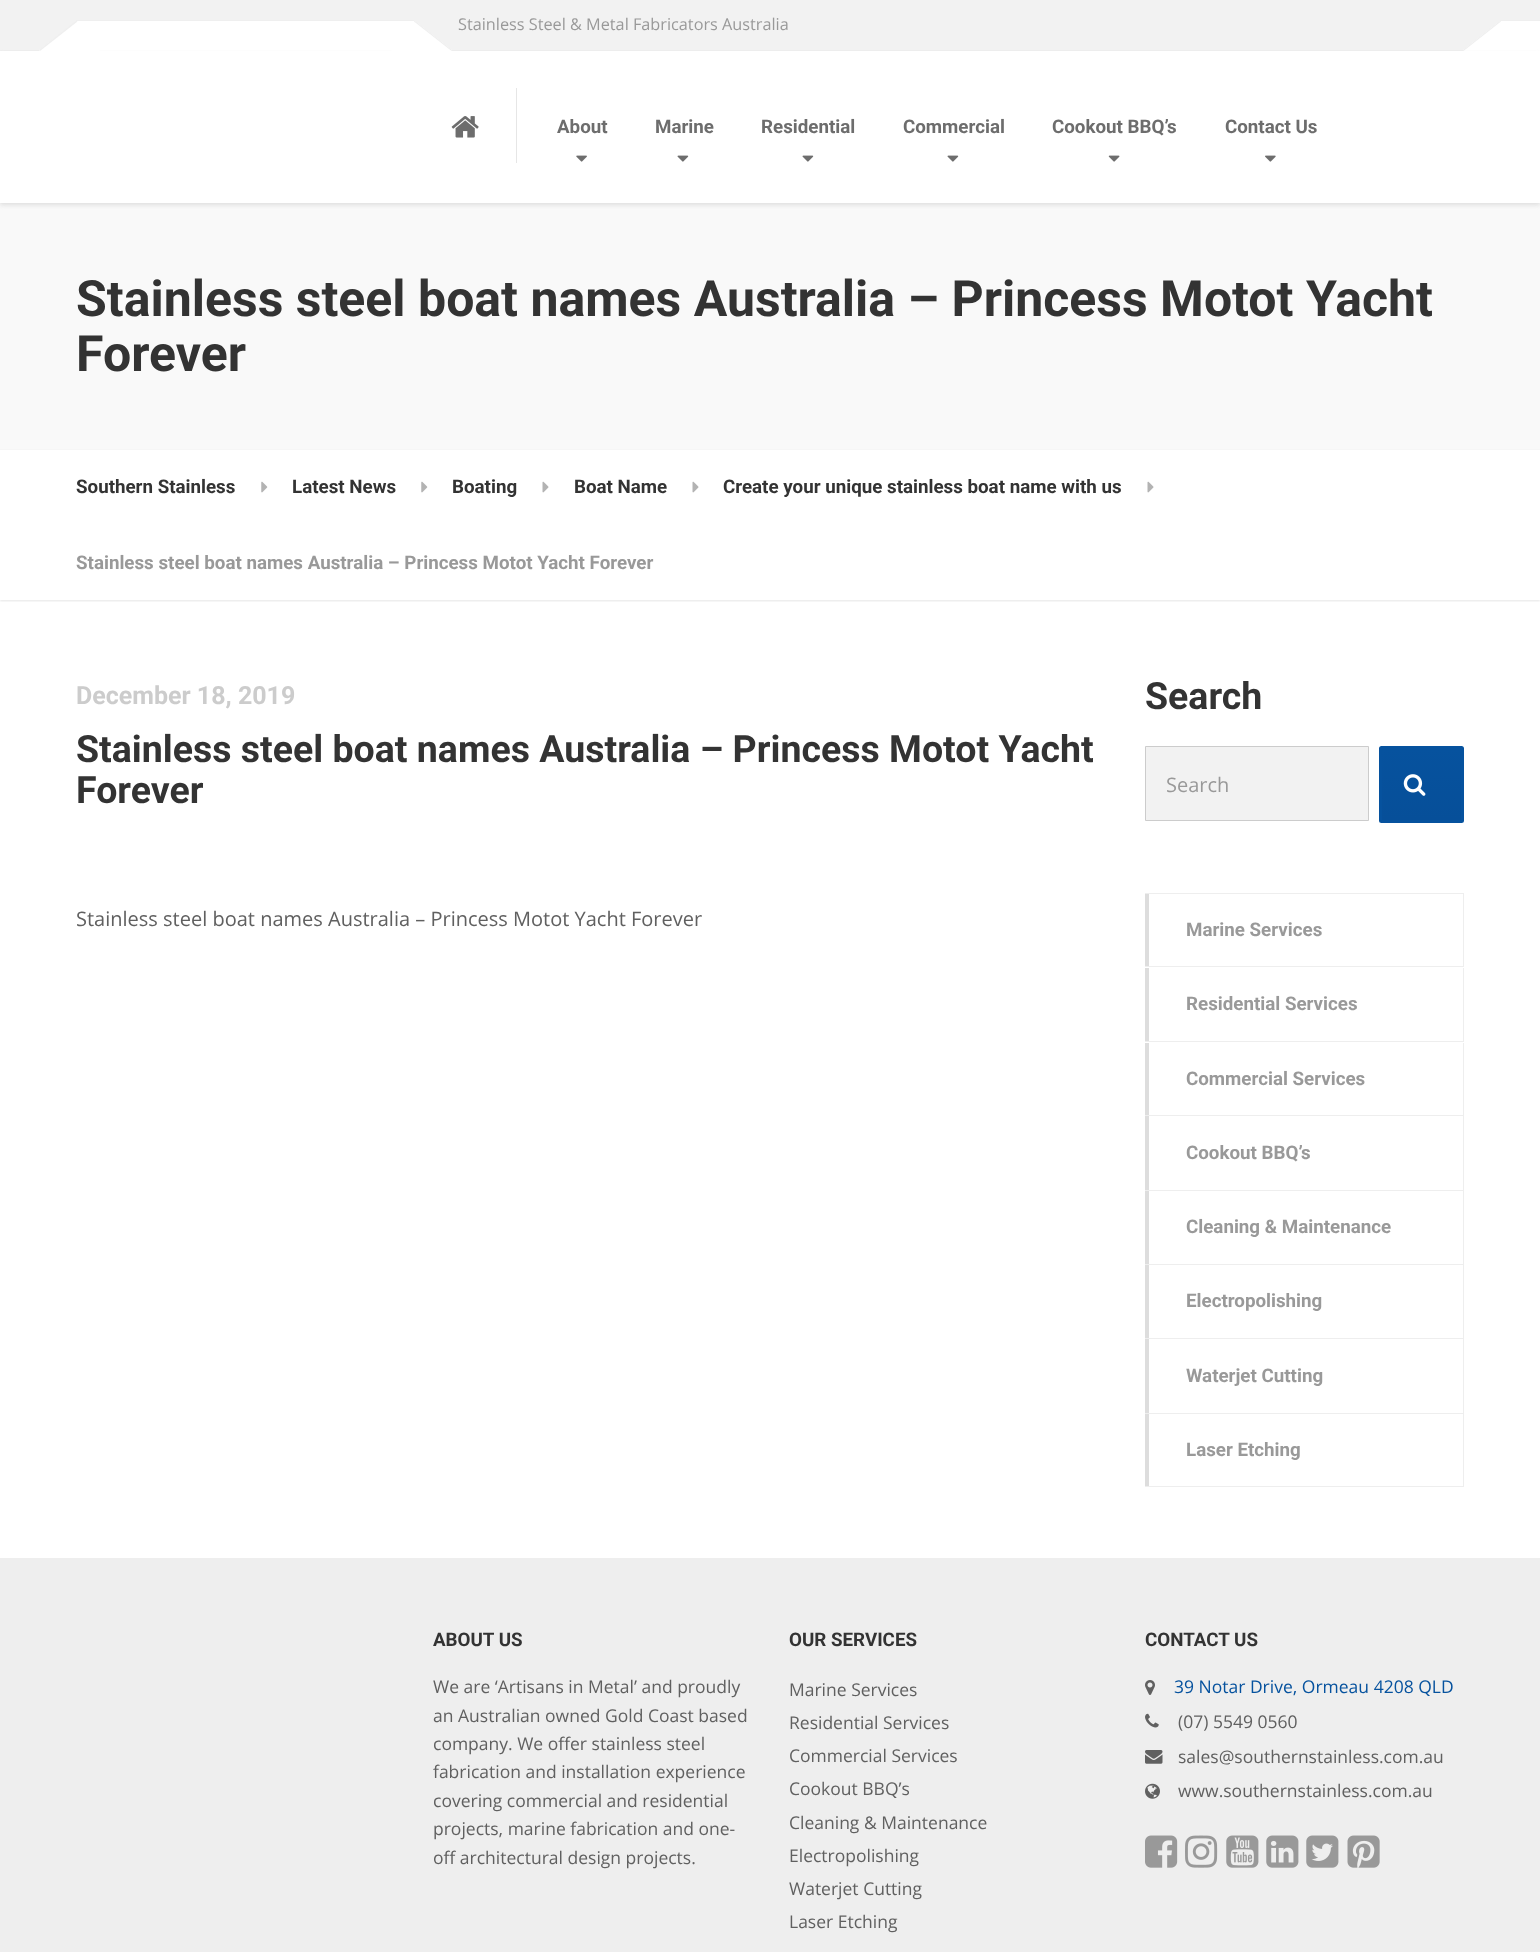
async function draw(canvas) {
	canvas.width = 1540;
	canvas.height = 1952;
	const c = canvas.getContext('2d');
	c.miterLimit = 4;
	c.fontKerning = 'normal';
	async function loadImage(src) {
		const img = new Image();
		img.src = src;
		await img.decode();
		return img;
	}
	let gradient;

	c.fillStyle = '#fff';
	c.fillRect(0, 0, 1540, 1952);
	for (const [x, y, w, h, color] of [
		[0, 0, 1540, 50, '#f2f2f2'],
		[0, 50, 1464, 1, '#efefef'],
		[76, 21, 338, 30, '#fff'],
		[76, 20, 338, 1, '#efefef'],
	]) {
		c.fillStyle = color;
		c.fillRect(x, y, w, h);
	}
	c.font = '16.25px Open Sans';
	c.fillStyle = '#999';
	c.fillText('Stainless Steel & Metal Fabricators Australia', 458, 30);
	c.fillStyle = '#fff';
	c.fillRect(1500, 21, 40, 29);
	c.beginPath();
	c.moveTo(1500, 21);
	c.lineTo(1530, 58);
	c.lineTo(1492, 87);
	c.lineTo(1463, 50);
	c.closePath();
	c.fill();
	c.fillStyle = '#efefef';
	c.fillRect(1500, 20, 40, 1);
	c.beginPath();
	c.moveTo(1500.5, 20.5);
	c.lineTo(1501, 21.5);
	c.lineTo(1463.5, 51);
	c.lineTo(1463, 50);
	c.closePath();
	c.fill();
	c.fillStyle = '#f9f9f9';
	c.fillRect(0, 203, 1540, 246);
	c.fillStyle = '#dedede';
	c.filter = 'blur(2px)';
	c.beginPath();
	c.rect(0, 54, 1540, 151);
	c.fill();
	c.filter = 'none';
	c.fillStyle = '#fff';
	c.fillRect(0, 51, 1540, 152);
	c.beginPath();
	c.moveTo(77, 21);
	c.lineTo(106, 58);
	c.lineTo(68, 87);
	c.lineTo(39, 50);
	c.closePath();
	c.fill();
	c.fillStyle = '#efefef';
	c.beginPath();
	c.moveTo(76.5, 20.5);
	c.lineTo(77.5, 21.5);
	c.lineTo(40, 51);
	c.lineTo(39, 50);
	c.closePath();
	c.fill();
	c.fillStyle = '#fff';
	c.beginPath();
	c.moveTo(385, 58);
	c.lineTo(415, 21);
	c.lineTo(452, 50);
	c.lineTo(423, 87);
	c.closePath();
	c.fill();
	c.fillStyle = '#efefef';
	c.beginPath();
	c.moveTo(414, 21.5);
	c.lineTo(414.5, 20.5);
	c.lineTo(452, 50);
	c.lineTo(451.5, 51);
	c.closePath();
	c.fill();
	c.fillStyle = '#e6e6e6';
	c.fillRect(516, 88, 1, 75);
	c.drawImage(await loadImage('img1.png'), 451, 116, 28, 22);
	c.font = 'bold 18.75px Roboto';
	c.fillStyle = '#6d6d6d';
	c.fillText('About', 557, 133);
	c.drawImage(await loadImage('img2.png'), 576, 155, 11, 7);
	c.fillText('Marine', 655, 133);
	c.drawImage(await loadImage('img3.png'), 677, 155, 12, 7);
	c.fillText('Residential', 761, 133);
	c.drawImage(await loadImage('img3.png'), 802, 155, 12, 7);
	c.fillText('Commercial', 903, 133);
	c.drawImage(await loadImage('img3.png'), 947, 155, 12, 7);
	c.fillText('Cookout BBQ’s', 1052, 133);
	c.drawImage(await loadImage('img4.png'), 1108, 155, 12, 7);
	c.fillText('Contact Us', 1225, 133);
	c.drawImage(await loadImage('img5.png'), 1265, 155, 11, 7);
	c.fillStyle = '#f6f6f6';
	c.fillRect(0, 449, 1540, 1);
	c.font = 'bold 50px Roboto';
	c.fillStyle = '#333';
	c.fillText('Stainless steel boat names Australia – Princess Motot Yacht', 76, 316);
	c.fillText('Forever', 76, 371);
	c.save();
	c.beginPath();
	c.rect(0, 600, 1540, 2);
	c.clip();
	c.fillStyle = '#0000001a';
	c.filter = 'blur(1px)';
	c.beginPath();
	c.rect(0, 451, 1540, 150);
	c.fill();
	c.filter = 'none';
	c.restore();
	c.font = 'bold 18.75px Roboto';
	c.fillText('Southern Stainless', 76, 493);
	c.drawImage(await loadImage('img6.png'), 261, 481, 7, 12);
	c.fillText('Latest News', 292, 493);
	c.drawImage(await loadImage('img6.png'), 421, 481, 7, 12);
	c.fillText('Boating', 452, 493);
	c.drawImage(await loadImage('img7.png'), 542, 481, 7, 12);
	c.fillText('Boat Name', 574, 493);
	c.drawImage(await loadImage('img7.png'), 692, 481, 7, 12);
	c.fillText('Create your unique stainless boat name with us', 723, 493);
	c.drawImage(await loadImage('img7.png'), 1147, 481, 7, 12);
	c.fillStyle = '#999';
	c.fillText('Stainless steel boat names Australia – Princess Motot Yacht Forever', 76, 569);
	c.font = 'bold 25px Roboto';
	c.fillStyle = '#ccc';
	c.fillText('December 18, 2019', 76, 704);
	c.font = 'bold 37.5px Roboto';
	c.fillStyle = '#333';
	c.fillText('Stainless steel boat names Australia – Princess Motot Yacht', 76, 762);
	c.fillText('Forever', 76, 803);
	c.font = '20px Open Sans';
	c.fillStyle = '#606060';
	c.fillText('Stainless steel boat names Australia – Princess Motot Yacht Forever', 76, 926);
	c.font = 'bold 37.5px Roboto';
	c.fillStyle = '#333';
	c.fillText('Search', 1145, 709);
	c.fillStyle = '#f2f2f2';
	c.beginPath();
	c.rect(1145.5, 746.5, 223, 74);
	c.fill();
	c.strokeStyle = '#ccc';
	c.stroke();
	c.font = '20px Open Sans';
	c.fillStyle = '#999';
	c.fillText('Search', 1166, 792);
	gradient = c.createLinearGradient(1421, 749, 1421, 820);
	gradient.addColorStop(0, '#06529e');
	gradient.addColorStop(1, '#064f99');
	c.fillStyle = gradient;
	c.fillRect(1382, 749, 79, 71);
	c.beginPath();
	c.roundRect(1380.5, 747.5, 82, 74, 1);
	c.strokeStyle = '#06529e';
	c.lineWidth = 3;
	c.stroke();
	c.drawImage(await loadImage('img8.png'), 1403, 774, 23, 22);
	for (const [x, y, w, h, color] of [
		[1145, 893, 319, 1, '#eee'],
		[1145, 966, 319, 1, '#eee'],
		[1463, 894, 1, 72, '#eee'],
		[1145, 894, 4, 72, '#ddd'],
	]) {
		c.fillStyle = color;
		c.fillRect(x, y, w, h);
	}
	c.font = 'bold 18.75px Roboto';
	c.fillStyle = '#999';
	c.fillText('Marine Services', 1186, 936);
	for (const [x, y, w, h, color] of [
		[1145, 1041, 319, 1, '#eee'],
		[1463, 968, 1, 73, '#eee'],
		[1145, 968, 4, 73, '#ddd'],
	]) {
		c.fillStyle = color;
		c.fillRect(x, y, w, h);
	}
	c.fillStyle = '#999';
	c.fillText('Residential Services', 1186, 1010);
	for (const [x, y, w, h, color] of [
		[1145, 1115, 319, 1, '#eee'],
		[1463, 1043, 1, 72, '#eee'],
		[1145, 1043, 4, 72, '#ddd'],
	]) {
		c.fillStyle = color;
		c.fillRect(x, y, w, h);
	}
	c.fillStyle = '#999';
	c.fillText('Commercial Services', 1186, 1085);
	for (const [x, y, w, h, color] of [
		[1145, 1190, 319, 1, '#eee'],
		[1463, 1116, 1, 74, '#eee'],
		[1145, 1116, 4, 74, '#ddd'],
	]) {
		c.fillStyle = color;
		c.fillRect(x, y, w, h);
	}
	c.fillStyle = '#999';
	c.fillText('Cookout BBQ’s', 1186, 1159);
	for (const [x, y, w, h, color] of [
		[1145, 1264, 319, 1, '#eee'],
		[1463, 1191, 1, 73, '#eee'],
		[1145, 1191, 4, 73, '#ddd'],
	]) {
		c.fillStyle = color;
		c.fillRect(x, y, w, h);
	}
	c.fillStyle = '#999';
	c.fillText('Cleaning & Maintenance', 1186, 1233);
	for (const [x, y, w, h, color] of [
		[1145, 1338, 319, 1, '#eee'],
		[1463, 1265, 1, 73, '#eee'],
		[1145, 1265, 4, 73, '#ddd'],
	]) {
		c.fillStyle = color;
		c.fillRect(x, y, w, h);
	}
	c.fillStyle = '#999';
	c.fillText('Electropolishing', 1186, 1307);
	for (const [x, y, w, h, color] of [
		[1145, 1413, 319, 1, '#eee'],
		[1463, 1339, 1, 74, '#eee'],
		[1145, 1339, 4, 74, '#ddd'],
	]) {
		c.fillStyle = color;
		c.fillRect(x, y, w, h);
	}
	c.fillStyle = '#999';
	c.fillText('Waterjet Cutting', 1186, 1382);
	for (const [x, y, w, h, color] of [
		[1145, 1486, 319, 1, '#eee'],
		[1463, 1414, 1, 72, '#eee'],
		[1145, 1414, 4, 72, '#ddd'],
	]) {
		c.fillStyle = color;
		c.fillRect(x, y, w, h);
	}
	c.fillStyle = '#999';
	c.fillText('Laser Etching', 1186, 1456);
	c.fillStyle = '#eee';
	c.fillRect(0, 1558, 1540, 394);
	c.fillStyle = '#333';
	c.fillText('ABOUT US', 433, 1646);
	c.font = '17.5px Open Sans';
	c.fillStyle = '#606060';
	for (const [text, x, y] of [
		['We are ‘Artisans in Metal’ and proudly', 433, 1693],
		['an Australian owned Gold Coast based', 433, 1722],
		['company. We offer stainless steel', 433, 1750],
		['fabrication and installation experience', 433, 1778],
		['covering commercial and residential', 433, 1807],
		['projects, marine fabrication and one-', 433, 1835],
		['off architectural design projects.', 433, 1864],
	]) {
		c.fillText(text, x, y);
	}
	c.font = 'bold 18.75px Roboto';
	c.fillStyle = '#333';
	c.fillText('OUR SERVICES', 789, 1646);
	c.font = '17.5px Open Sans';
	c.fillStyle = '#606060';
	for (const [text, x, y] of [
		['Marine Services', 789, 1696],
		['Residential Services', 789, 1729],
		['Commercial Services', 789, 1762],
		['Cookout BBQ’s', 789, 1795],
		['Cleaning & Maintenance', 789, 1829],
		['Electropolishing', 789, 1862],
		['Waterjet Cutting', 789, 1895],
		['Laser Etching', 789, 1928],
	]) {
		c.fillText(text, x, y);
	}
	c.font = 'bold 18.75px Roboto';
	c.fillStyle = '#333';
	c.fillText('CONTACT US', 1145, 1646);
	c.drawImage(await loadImage('img9.png'), 1145, 1680, 10, 15);
	c.font = '17.5px Open Sans';
	c.fillStyle = '#06529e';
	c.fillText('39 Notar Drive, Ormeau 4208 QLD', 1174, 1693);
	c.drawImage(await loadImage('img10.png'), 1145, 1713, 14, 15);
	c.fillStyle = '#606060';
	c.fillText('(07) 5549 0560', 1178, 1728);
	c.drawImage(await loadImage('img11.png'), 1145, 1750, 18, 14);
	c.fillText('sales@southernstainless.com.au', 1178, 1763);
	c.drawImage(await loadImage('img12.png'), 1145, 1783, 15, 16);
	c.fillText('www.southernstainless.com.au', 1178, 1797);
	c.drawImage(await loadImage('img13.png'), 1145, 1835, 33, 33);
	c.drawImage(await loadImage('img14.png'), 1185, 1835, 33, 33);
	c.drawImage(await loadImage('img15.png'), 1226, 1835, 33, 33);
	c.drawImage(await loadImage('img16.png'), 1266, 1835, 33, 33);
	c.drawImage(await loadImage('img17.png'), 1306, 1835, 33, 33);
	c.drawImage(await loadImage('img18.png'), 1347, 1835, 33, 33);
}

draw(document.querySelector('canvas'));
